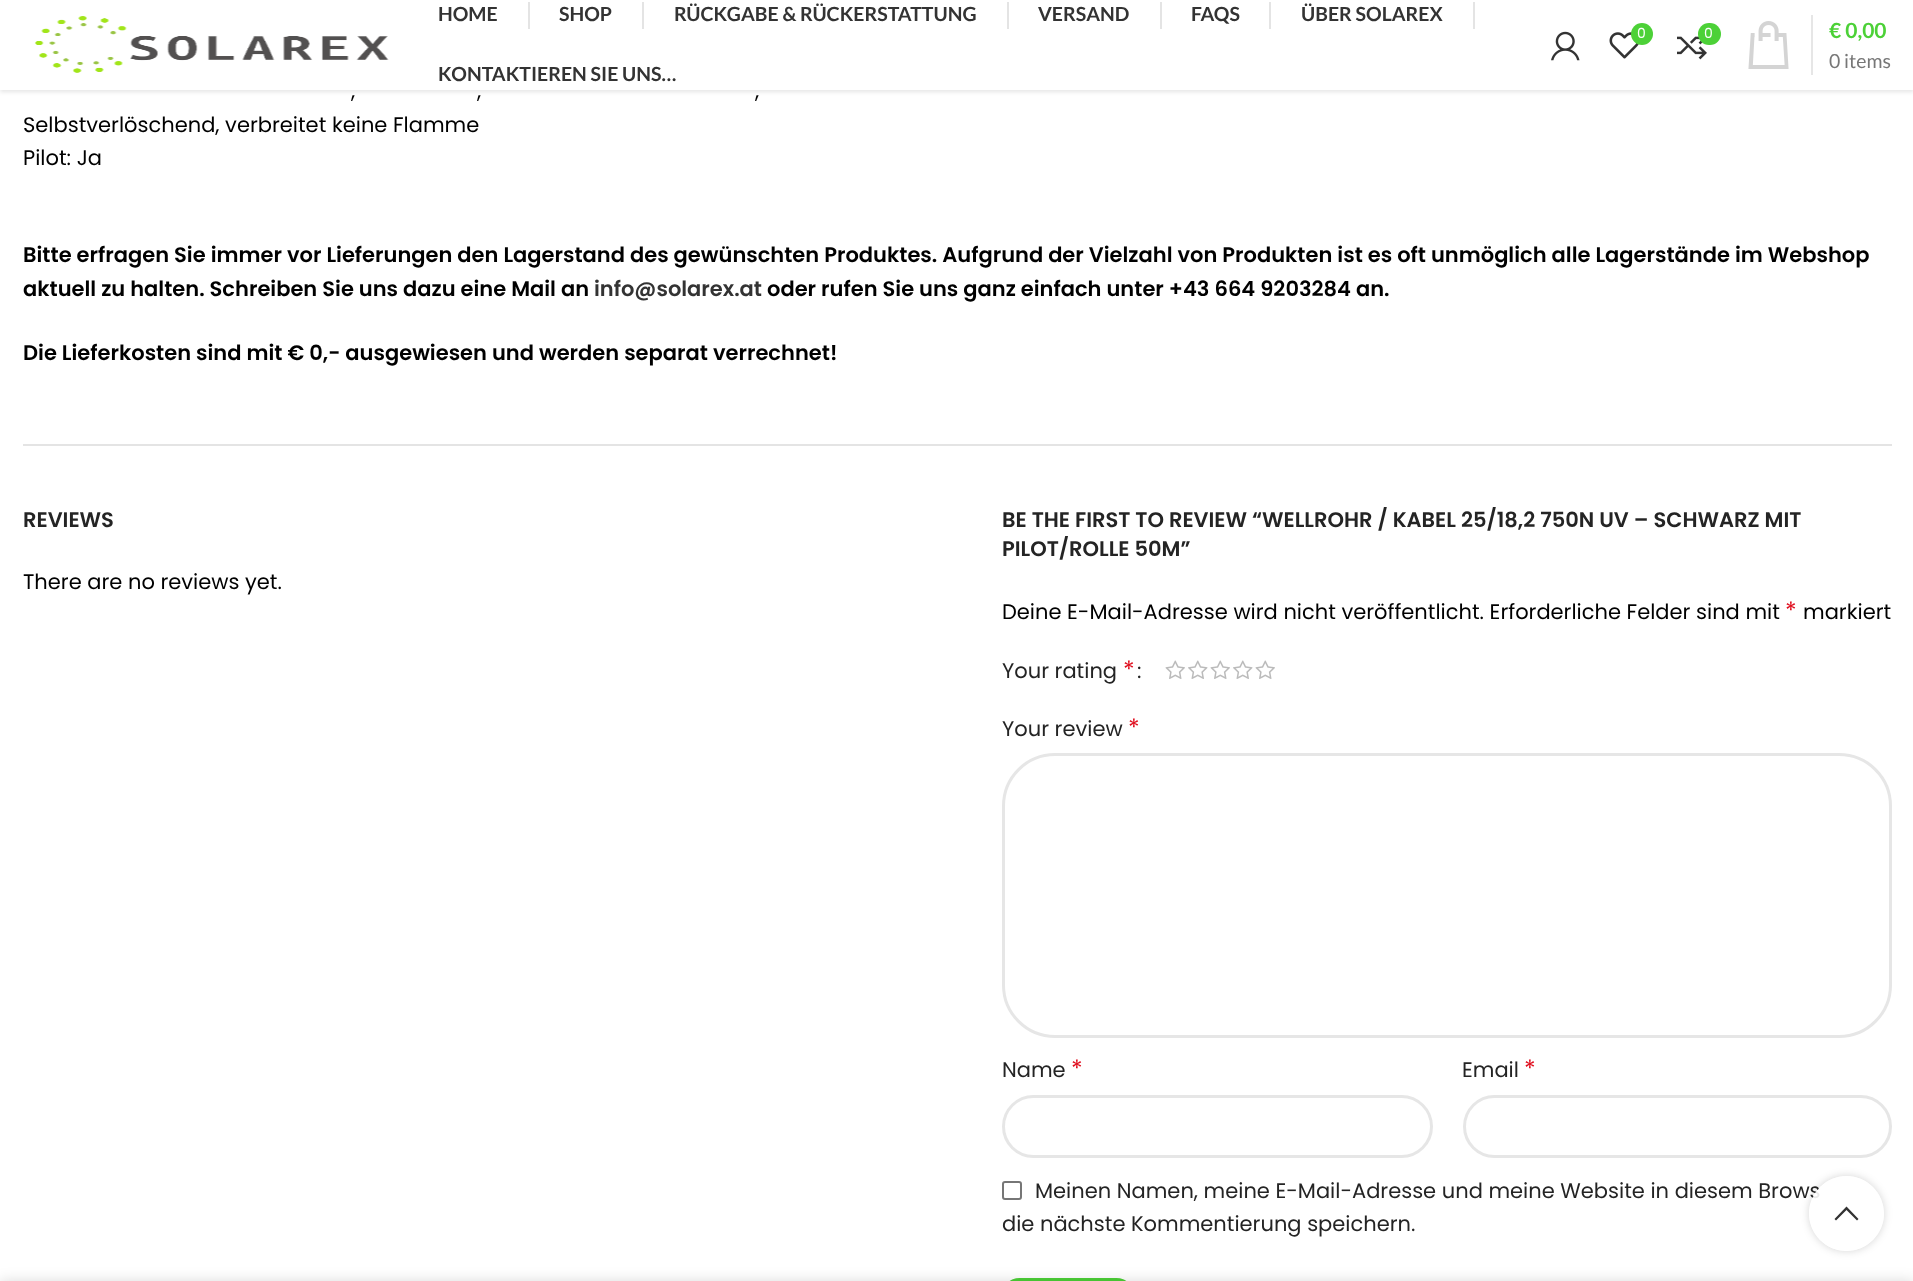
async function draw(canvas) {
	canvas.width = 1913;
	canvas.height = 1281;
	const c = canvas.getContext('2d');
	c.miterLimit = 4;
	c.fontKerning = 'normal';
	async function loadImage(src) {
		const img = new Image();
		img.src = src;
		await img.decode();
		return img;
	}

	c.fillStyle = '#fff';
	c.fillRect(0, 0, 1913, 1281);
	c.fillStyle = '#0000001a';
	c.filter = 'blur(2px)';
	c.beginPath();
	c.rect(0, 2, 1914, 90);
	c.fill();
	c.filter = 'none';
	c.fillStyle = '#fff';
	c.fillRect(0, 0, 1913, 90);
	c.drawImage(await loadImage('img1.png'), 34, 16, 355, 57);
	c.font = 'bold 19.5px Lato';
	c.fillStyle = '#333';
	c.fillText('HOME', 438, 21);
	c.fillStyle = '#e4e4e4';
	c.fillRect(528, 2, 2, 27);
	c.fillStyle = '#333';
	c.fillText('SHOP', 559, 21);
	c.fillStyle = '#e4e4e4';
	c.fillRect(642, 2, 2, 27);
	c.fillStyle = '#333';
	c.fillText('RÜCKGABE & RÜCKERSTATTUNG', 674, 21);
	c.fillStyle = '#e4e4e4';
	c.fillRect(1007, 2, 2, 27);
	c.fillStyle = '#333';
	c.fillText('VERSAND', 1038, 21);
	c.fillStyle = '#e4e4e4';
	c.fillRect(1160, 2, 2, 27);
	c.fillStyle = '#333';
	c.fillText('FAQS', 1191, 21);
	c.fillStyle = '#e4e4e4';
	c.fillRect(1269, 2, 2, 27);
	c.fillStyle = '#333';
	c.fillText('ÜBER SOLAREX', 1301, 21);
	c.fillStyle = '#e4e4e4';
	c.fillRect(1473, 2, 2, 27);
	c.fillStyle = '#333';
	c.fillText('KONTAKTIEREN SIE UNS…', 438, 81);
	c.drawImage(await loadImage('img2.png'), 1551, 31, 29, 30);
	c.drawImage(await loadImage('img3.png'), 1609, 32, 30, 27);
	c.fillStyle = '#4cd137';
	c.beginPath();
	c.arc(1642, 34, 11, 0, 2 * Math.PI);
	c.fill();
	c.font = '14px Poppins';
	c.fillStyle = '#fff';
	c.fillText('0', 1637, 38);
	c.drawImage(await loadImage('img4.png'), 1677, 32, 30, 28);
	c.fillStyle = '#4cd137';
	c.beginPath();
	c.roundRect(1698, 23, 23, 22, 11);
	c.fill();
	c.fillStyle = '#fff';
	c.fillText('0', 1704, 38);
	c.drawImage(await loadImage('img5.png'), 1748, 21, 41, 48);
	c.fillStyle = '#e6e6e6';
	c.fillRect(1811, 15, 2, 60);
	c.font = 'bold 21px Lato';
	c.fillStyle = '#4cd137';
	c.fillText('€ 0,00', 1829, 38);
	c.font = '19.5px Lato';
	c.fillStyle = '#777';
	c.fillText('0 items', 1829, 68);
	c.font = '21px Poppins';
	c.fillStyle = '#000';
	for (const [text, x, y] of [
		[',', 351, 98],
		[',', 477, 98],
		[',', 755, 98],
		['Selbstverlöschend, verbreitet keine Flamme', 23, 132],
		['Pilot: Ja', 23, 165],
	]) {
		c.fillText(text, x, y);
	}
	c.font = '600 21px Poppins';
	c.fillText('Bitte erfragen Sie immer vor Lieferungen den Lagerstand des gewünschten Produktes. Aufgrund der Vielzahl von Produkten ist es oft unmöglich alle Lagerstände im Webshop', 23, 262);
	c.fillText('aktuell zu halten. Schreiben Sie uns dazu eine Mail an', 23, 296);
	c.fillStyle = '#333';
	c.fillText('info@solarex.at', 594, 296);
	c.fillStyle = '#000';
	c.fillText('oder rufen Sie uns ganz einfach unter +43 664 9203284 an.', 767, 296);
	c.fillText('Die Lieferkosten sind mit € 0,- ausgewiesen und werden separat verrechnet!', 23, 360);
	c.fillStyle = '#e4e4e4';
	c.fillRect(23, 444, 1869, 2);
	c.fillStyle = '#242424';
	c.fillText('REVIEWS', 23, 527);
	c.font = '21px Poppins';
	c.fillStyle = '#000';
	c.fillText('There are no reviews yet.', 23, 589);
	c.font = '600 21px Poppins';
	c.fillStyle = '#242424';
	c.fillText('BE THE FIRST TO REVIEW “WELLROHR / KABEL 25/18,2 750N UV – SCHWARZ MIT', 1002, 527);
	c.fillText('PILOT/ROLLE 50M”', 1002, 556);
	c.font = '21px Poppins';
	c.fillStyle = '#000';
	c.fillText('Deine E-Mail-Adresse wird nicht veröffentlicht. Erforderliche Felder sind mit', 1002, 619);
	c.font = '24px Poppins';
	c.fillStyle = '#e01020';
	c.fillText('*', 1785, 619);
	c.font = '21px Poppins';
	c.fillStyle = '#000';
	c.fillText('markiert', 1803, 619);
	c.fillStyle = '#242424';
	c.fillText('Your rating', 1002, 678);
	c.font = '24px Poppins';
	c.fillStyle = '#e01020';
	c.fillText('*', 1123, 678);
	c.font = '21px Poppins';
	c.fillStyle = '#242424';
	c.fillText(':', 1137, 678);
	c.drawImage(await loadImage('img6.png'), 1165, 660, 20, 19);
	c.drawImage(await loadImage('img7.png'), 1188, 660, 20, 19);
	c.drawImage(await loadImage('img6.png'), 1210, 660, 20, 19);
	c.drawImage(await loadImage('img7.png'), 1233, 660, 20, 19);
	c.drawImage(await loadImage('img6.png'), 1255, 660, 20, 19);
	c.fillText('Your review', 1002, 736);
	c.font = '24px Poppins';
	c.fillStyle = '#e01020';
	c.fillText('*', 1128, 736);
	c.beginPath();
	c.roundRect(1003.5, 754.5, 887, 282, 51.5);
	c.strokeStyle = '#e6e6e6';
	c.lineWidth = 3;
	c.stroke();
	c.font = '21px Poppins';
	c.fillStyle = '#242424';
	c.fillText('Name', 1002, 1077);
	c.font = '24px Poppins';
	c.fillStyle = '#e01020';
	c.fillText('*', 1071, 1077);
	c.beginPath();
	c.roundRect(1003.5, 1096.5, 428, 60, 30);
	c.stroke();
	c.font = '21px Poppins';
	c.fillStyle = '#242424';
	c.fillText('Email', 1462, 1077);
	c.font = '24px Poppins';
	c.fillStyle = '#e01020';
	c.fillText('*', 1524, 1077);
	c.beginPath();
	c.roundRect(1464.5, 1096.5, 426, 60, 30);
	c.stroke();
	c.beginPath();
	c.roundRect(1003, 1182, 18, 17, 2);
	c.strokeStyle = '#767676';
	c.lineWidth = 2;
	c.stroke();
	c.font = '21px Poppins';
	c.fillStyle = '#242424';
	c.fillText('Meinen Namen, meine E-Mail-Adresse und meine Website in diesem Brows', 1035, 1198);
	c.fillText('die nächste Kommentierung speichern.', 1002, 1231);
	c.fillStyle = '#4cd137';
	c.beginPath();
	c.roundRect(1002, 1278, 132, 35, 31.5);
	c.fill();
	c.save();
	c.beginPath();
	c.moveTo(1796, 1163);
	c.lineTo(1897, 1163);
	c.lineTo(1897, 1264);
	c.lineTo(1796, 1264);
	c.closePath();
	c.moveTo(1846.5, 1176);
	c.bezierCurveTo(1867, 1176, 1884, 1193, 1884, 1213.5);
	c.bezierCurveTo(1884, 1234, 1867, 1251, 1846.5, 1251);
	c.bezierCurveTo(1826, 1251, 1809, 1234, 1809, 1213.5);
	c.bezierCurveTo(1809, 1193, 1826, 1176, 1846.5, 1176);
	c.closePath();
	c.clip('evenodd');
	c.fillStyle = '#0000002b';
	c.filter = 'blur(4px)';
	c.beginPath();
	c.roundRect(1809, 1176, 75, 75, 37.5);
	c.fill();
	c.filter = 'none';
	c.restore();
	c.fillStyle = '#ffffffe6';
	c.beginPath();
	c.arc(1846.5, 1213.5, 37.5, 0, 2 * Math.PI);
	c.fill();
	c.fillStyle = '#333';
	c.beginPath();
	c.moveTo(1846.5, 1206.5);
	c.lineTo(1858.5, 1219);
	c.lineTo(1857, 1220.5);
	c.lineTo(1846.5, 1210);
	c.lineTo(1836, 1220.5);
	c.lineTo(1834.5, 1219);
	c.closePath();
	c.fill();
	c.fillStyle = '#00000024';
	c.filter = 'blur(7px)';
	c.beginPath();
	c.rect(0, 1281, 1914, 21);
	c.fill();
	c.filter = 'none';
}

draw(document.querySelector('canvas'));
